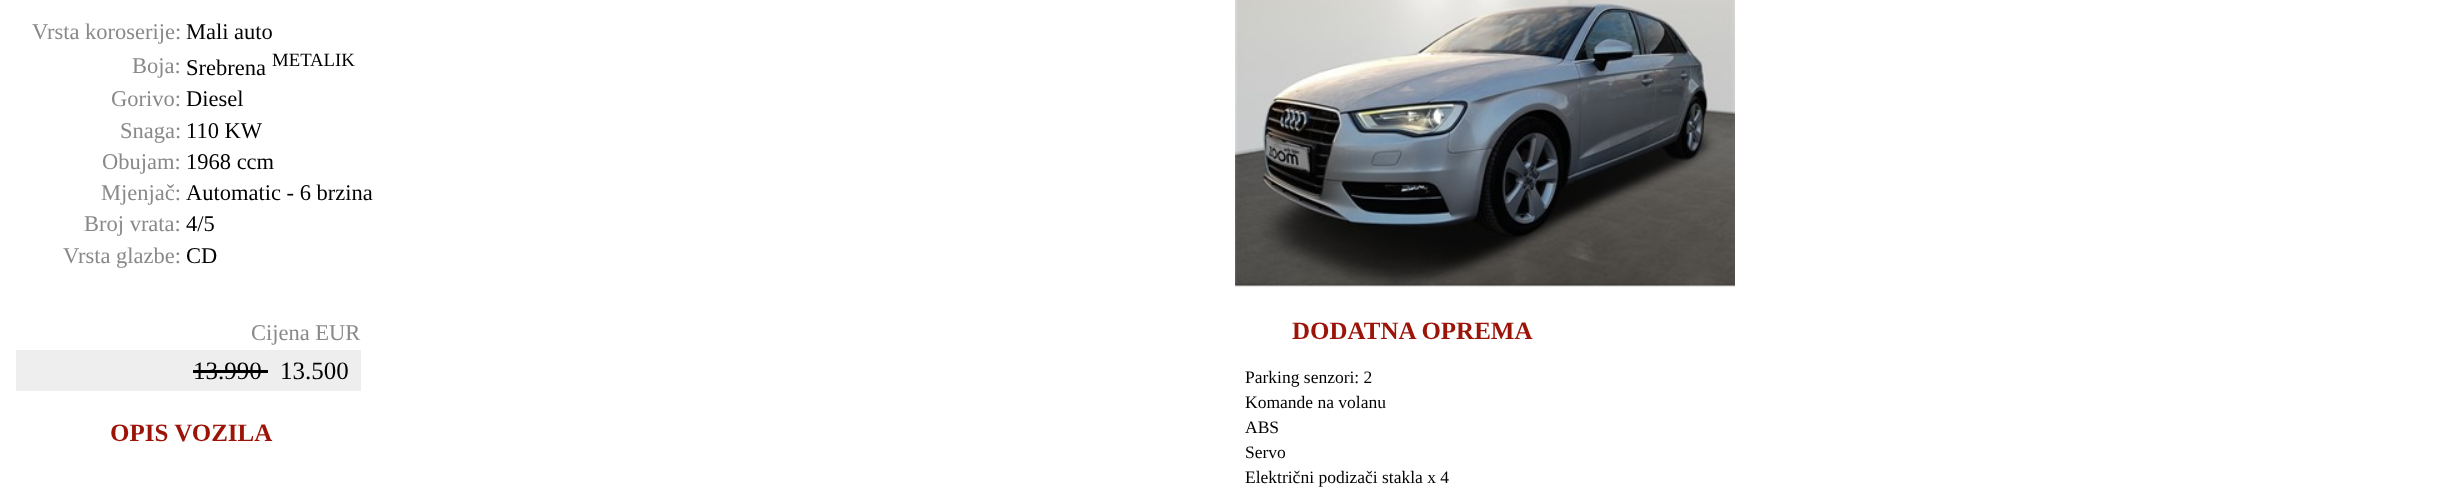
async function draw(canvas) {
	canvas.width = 2464;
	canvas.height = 495;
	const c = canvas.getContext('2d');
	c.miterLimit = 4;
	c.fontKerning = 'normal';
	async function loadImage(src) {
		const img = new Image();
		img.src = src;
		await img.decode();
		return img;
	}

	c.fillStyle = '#fff';
	c.fillRect(0, 0, 2464, 495);
	c.font = '22.5px Liberation Serif';
	c.fillStyle = '#898989';
	c.fillText('Vrsta koroserije:', 32, 39);
	c.fillStyle = '#000';
	c.fillText('Mali auto', 186, 39);
	c.fillStyle = '#898989';
	c.fillText('Boja:', 132, 73);
	c.fillStyle = '#000';
	c.fillText('Srebrena', 186, 75);
	c.font = '18.75px Liberation Serif';
	c.fillText('METALIK', 272, 66);
	c.font = '22.5px Liberation Serif';
	c.fillStyle = '#898989';
	c.fillText('Gorivo:', 111, 106);
	c.fillStyle = '#000';
	c.fillText('Diesel', 186, 106);
	c.fillStyle = '#898989';
	c.fillText('Snaga:', 120, 138);
	c.fillStyle = '#000';
	c.fillText('110 KW', 186, 138);
	c.fillStyle = '#898989';
	c.fillText('Obujam:', 102, 169);
	c.fillStyle = '#000';
	c.fillText('1968 ccm', 186, 169);
	c.fillStyle = '#898989';
	c.fillText('Mjenjač:', 101, 200);
	c.fillStyle = '#000';
	c.fillText('Automatic - 6 brzina', 186, 200);
	c.fillStyle = '#898989';
	c.fillText('Broj vrata:', 84, 231);
	c.fillStyle = '#000';
	c.fillText('4/5', 186, 231);
	c.fillStyle = '#898989';
	c.fillText('Vrsta glazbe:', 63, 263);
	c.fillStyle = '#000';
	c.fillText('CD', 186, 263);
	c.fillStyle = '#898989';
	c.fillText('Cijena EUR', 251, 340);
	c.fillStyle = '#eee';
	c.fillRect(16, 350, 345, 41);
	c.font = '25px Liberation Serif';
	c.fillStyle = '#000';
	c.fillText('13.990', 193, 379);
	c.fillRect(193, 370, 75, 3);
	c.fillText('13.500', 280, 379);
	c.font = 'bold 25px Liberation Serif';
	c.fillStyle = '#9c1308';
	c.fillText('OPIS VOZILA', 110, 441);
	c.drawImage(await loadImage('img1.png'), 1235, 0, 500, 287);
	c.fillText('DODATNA OPREMA', 1292, 339);
	c.font = '17.5px Liberation Serif';
	c.fillStyle = '#000';
	for (const [text, x, y] of [
		['Parking senzori: 2', 1245, 383],
		['Komande na volanu', 1245, 408],
		['ABS', 1245, 433],
		['Servo', 1245, 458],
		['Električni podizači stakla x 4', 1245, 483],
	]) {
		c.fillText(text, x, y);
	}
}

draw(document.querySelector('canvas'));
